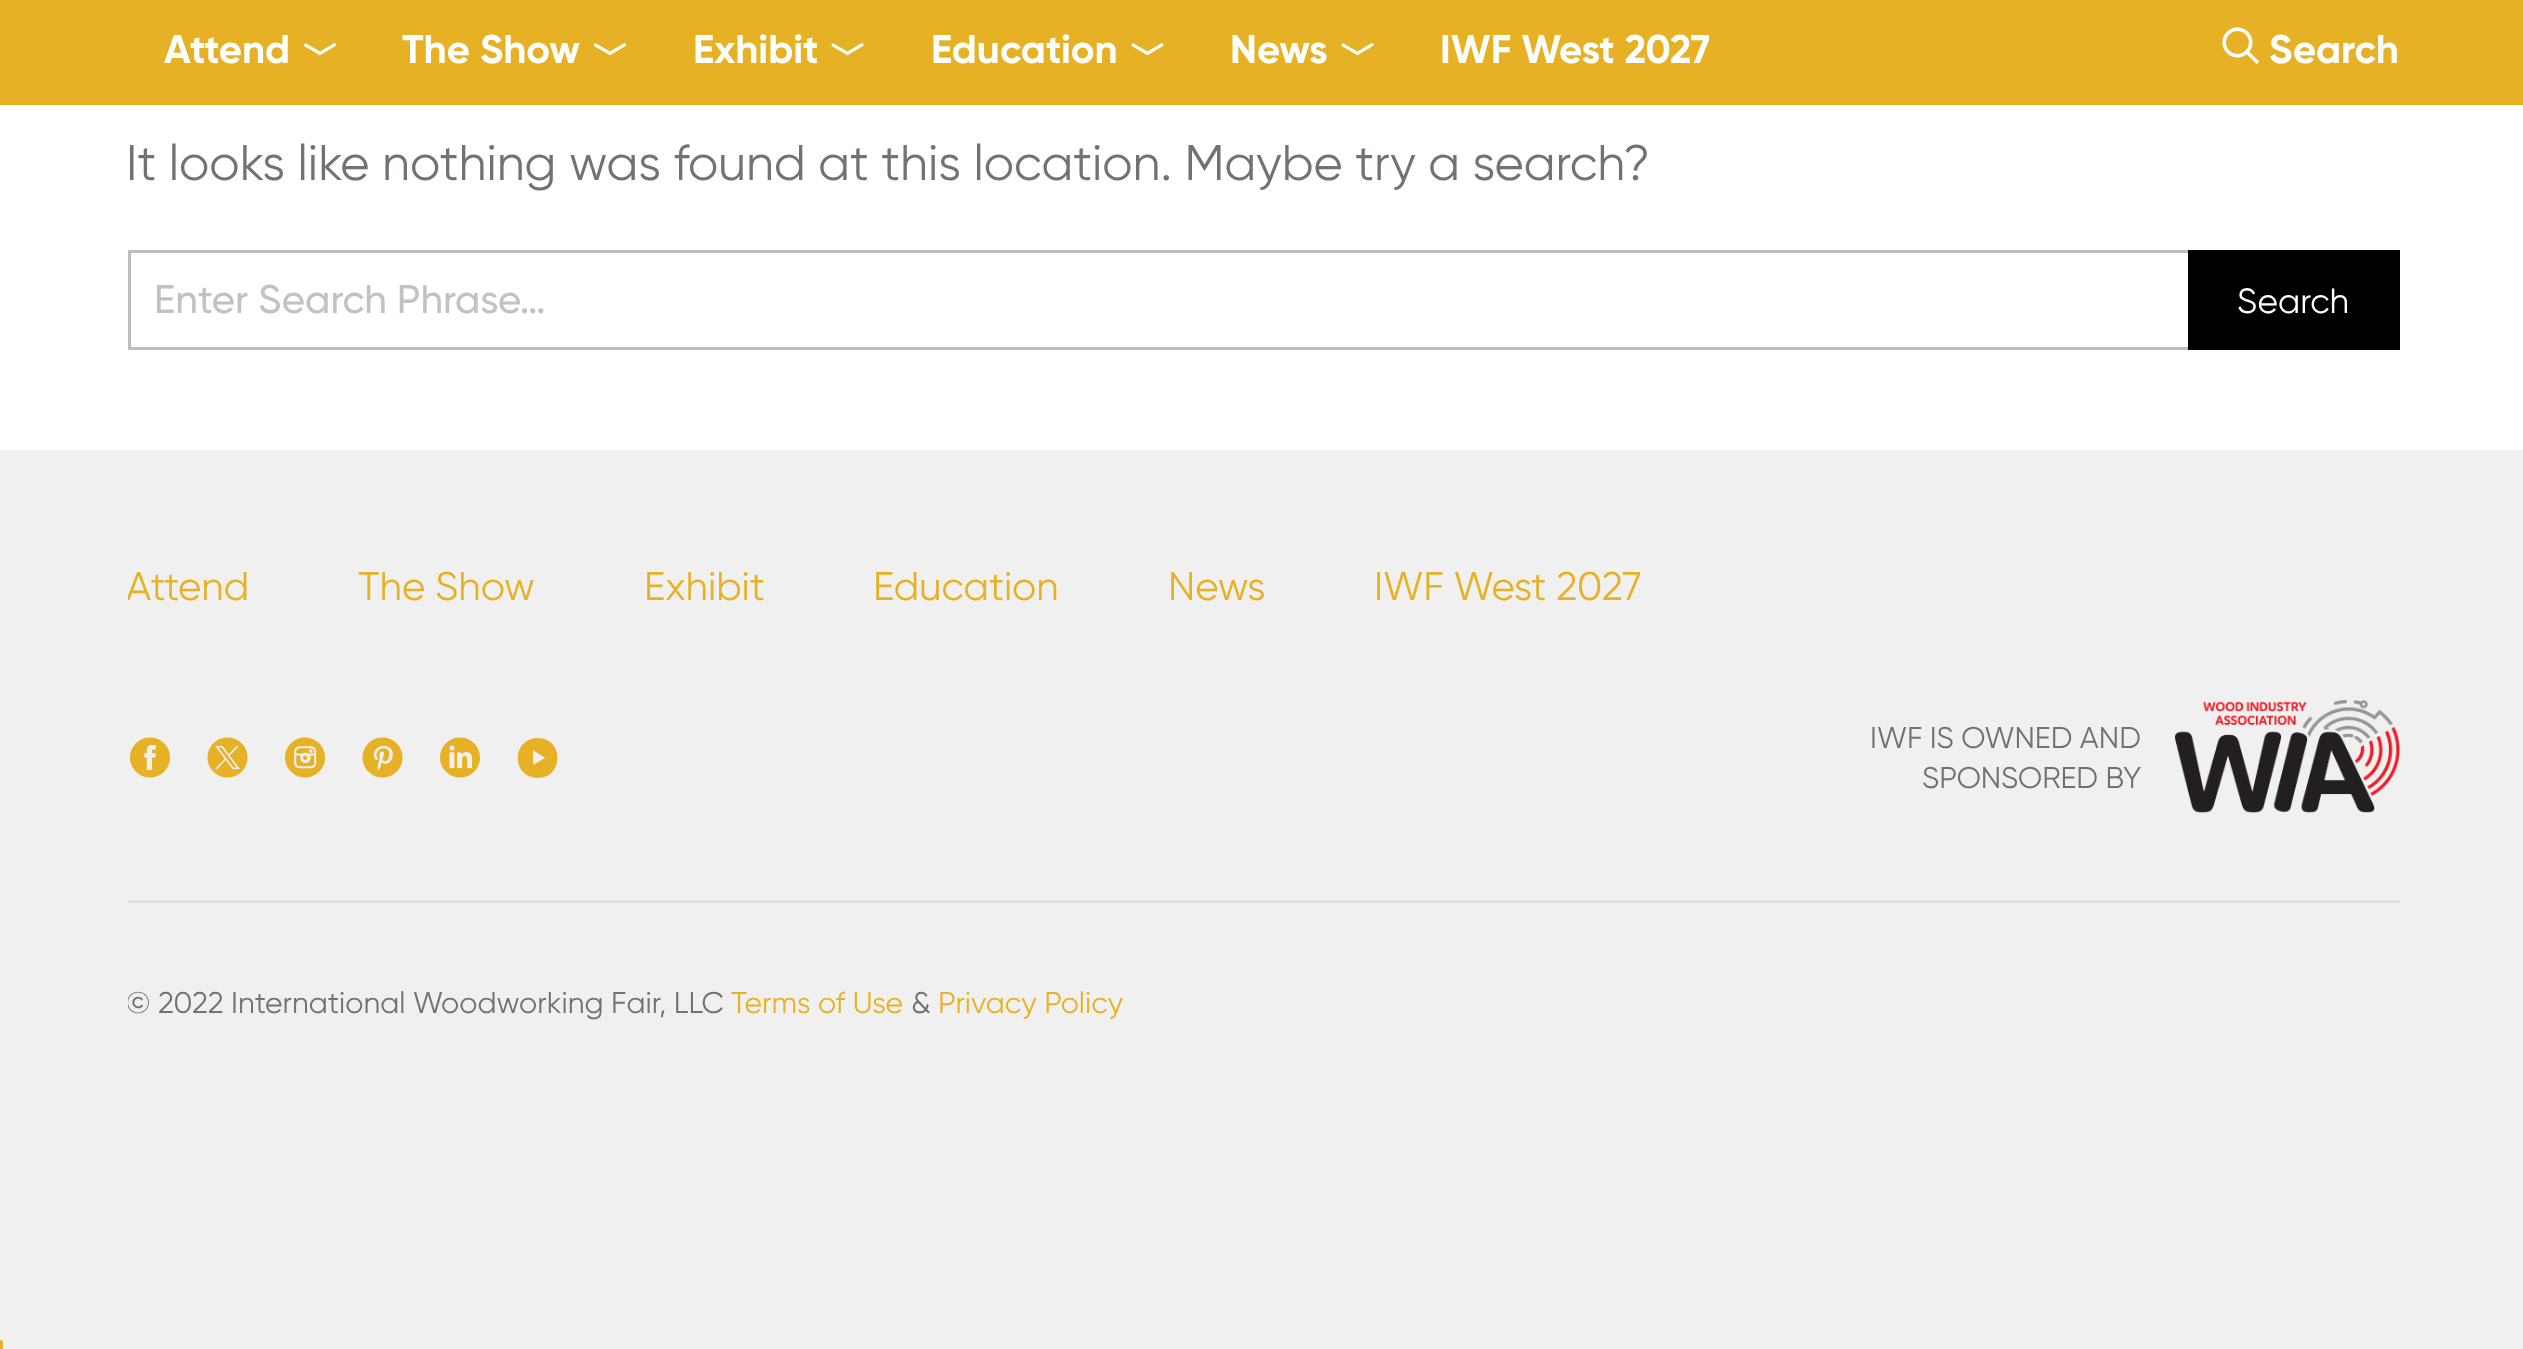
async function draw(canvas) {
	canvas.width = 2523;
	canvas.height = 1349;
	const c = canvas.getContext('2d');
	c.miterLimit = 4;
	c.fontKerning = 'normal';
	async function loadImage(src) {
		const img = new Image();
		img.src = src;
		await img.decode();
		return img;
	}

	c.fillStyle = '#f1f0f0';
	c.fillRect(0, 0, 2523, 1349);
	c.fillStyle = '#fff';
	c.fillRect(0, 105, 2523, 345);
	c.fillStyle = '#e6b125';
	c.fillRect(0, 0, 2523, 105);
	c.font = 'bold 40px Gilroy';
	c.fillStyle = '#fff';
	c.fillText('Attend', 164, 63);
	c.drawImage(await loadImage('img1.png'), 304, 43, 32, 13);
	c.fillText('The Show', 402, 63);
	c.drawImage(await loadImage('img1.png'), 594, 43, 32, 13);
	c.fillText('Exhibit', 693, 63);
	c.drawImage(await loadImage('img2.png'), 831, 43, 33, 13);
	c.fillText('Education', 931, 63);
	c.drawImage(await loadImage('img2.png'), 1131, 43, 33, 13);
	c.fillText('News', 1230, 63);
	c.drawImage(await loadImage('img2.png'), 1341, 43, 33, 13);
	c.fillText('IWF West 2027', 1440, 63);
	c.drawImage(await loadImage('img3.png'), 2222, 27, 38, 38);
	c.fillText('Search', 2269, 63);
	c.font = '50px Gilroy';
	c.fillStyle = '#74716f';
	c.fillText('It looks like nothing was found at this location. Maybe try a search?', 126, 180);
	c.strokeStyle = '#bdbdbd';
	c.lineWidth = 3;
	c.strokeRect(129.5, 251.5, 2269, 97);
	c.font = '500 40px Gilroy';
	c.fillStyle = '#c2c2c2';
	c.fillText('Enter Search Phrase…', 154, 313);
	c.fillStyle = '#000';
	c.fillRect(2188, 250, 212, 100);
	c.font = '35px Gilroy';
	c.fillStyle = '#fff';
	c.fillText('Search', 2237, 313);
	c.save();
	c.beginPath();
	c.rect(128, 550, 1515, 75);
	c.clip();
	c.font = '40px Gilroy';
	c.fillStyle = '#e6b125';
	c.fillText('Attend', 126, 600);
	c.restore();
	c.font = '40px Gilroy';
	c.fillStyle = '#e6b125';
	for (const [text, x, y] of [
		['The Show', 358, 600],
		['Exhibit', 644, 600],
		['Education', 873, 600],
		['News', 1168, 600],
		['IWF West 2027', 1374, 600],
	]) {
		c.fillText(text, x, y);
	}
	c.drawImage(await loadImage('img4.png'), 130, 737, 40, 41);
	c.drawImage(await loadImage('img5.png'), 207, 737, 41, 41);
	c.drawImage(await loadImage('img6.png'), 285, 737, 40, 41);
	c.drawImage(await loadImage('img7.png'), 362, 737, 41, 41);
	c.drawImage(await loadImage('img8.png'), 440, 737, 40, 41);
	c.beginPath();
	c.moveTo(538, 738);
	c.bezierCurveTo(511, 738, 511, 778, 538, 778);
	c.bezierCurveTo(564, 778, 564, 738, 538, 738);
	c.closePath();
	c.moveTo(533, 765);
	c.lineTo(533, 750);
	c.lineTo(545, 758);
	c.closePath();
	c.fill();
	c.font = '30px Gilroy';
	c.fillStyle = '#74716f';
	c.fillText('IWF IS OWNED AND', 1870, 748);
	c.fillText('SPONSORED BY', 1922, 788);
	c.drawImage(await loadImage('img9.png'), 2175, 700, 225, 113);
	c.fillStyle = '#e0e0e0';
	c.fillRect(128, 900, 2272, 3);
	c.save();
	c.beginPath();
	c.rect(128, 903, 2272, 197);
	c.clip();
	c.fillStyle = '#74716f';
	c.fillText('©', 126, 1013);
	c.restore();
	c.fillStyle = '#74716f';
	c.fillText('2022 International Woodworking Fair, LLC', 158, 1013);
	c.fillStyle = '#e6b125';
	c.fillText('Terms of Use', 731, 1013);
	c.fillStyle = '#74716f';
	c.fillText('&', 911, 1013);
	c.fillStyle = '#e6b125';
	c.fillText('Privacy Policy', 938, 1013);
	c.beginPath();
	c.moveTo(0, 1340);
	c.lineTo(0.5, 1340);
	c.bezierCurveTo(2, 1340, 3, 1341, 3, 1342.5);
	c.lineTo(3, 1347.5);
	c.bezierCurveTo(3, 1349, 2, 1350, 0.5, 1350);
	c.lineTo(0, 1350);
	c.closePath();
	c.fill();
}

draw(document.querySelector('canvas'));
